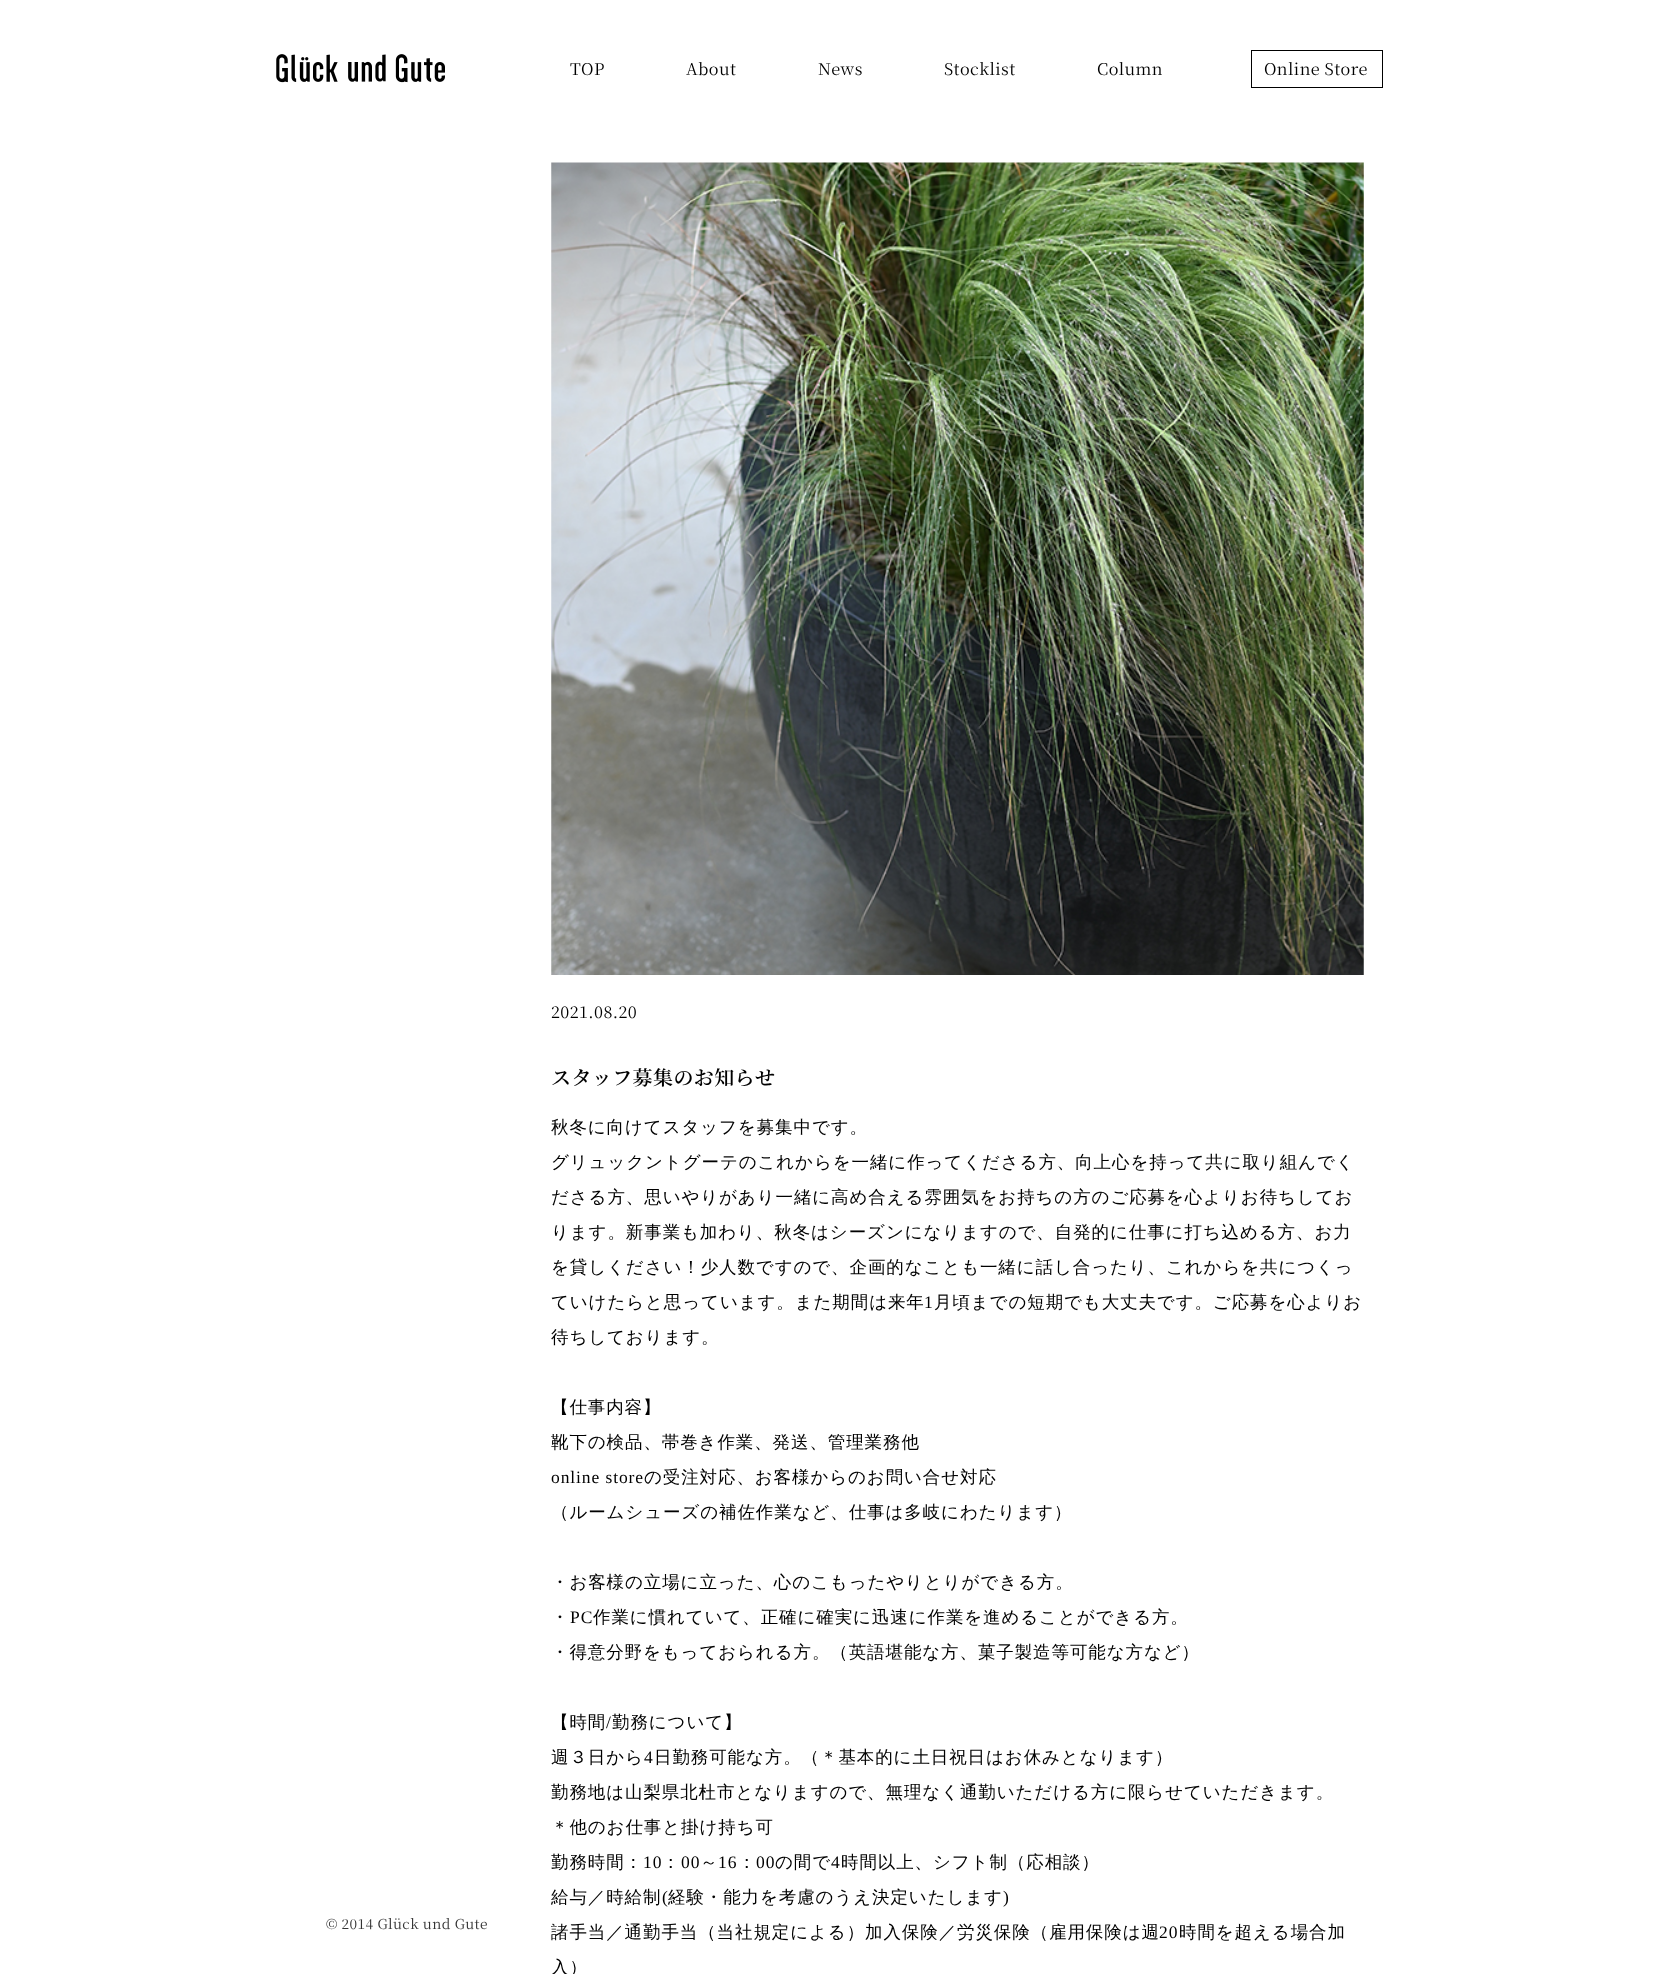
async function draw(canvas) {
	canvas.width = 1677;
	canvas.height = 1974;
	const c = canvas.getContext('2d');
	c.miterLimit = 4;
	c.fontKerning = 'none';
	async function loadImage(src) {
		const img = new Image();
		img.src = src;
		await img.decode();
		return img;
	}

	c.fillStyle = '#fff';
	c.fillRect(0, 0, 1677, 1974);
	c.drawImage(await loadImage('img1.png'), 276, 54, 169, 29);
	c.letterSpacing = '0.4px';
	c.font = '16.25px Noto Serif JP';
	c.fillStyle = '#000';
	for (const [text, x, y] of [
		['TOP', 570, 75],
		['About', 686, 75],
		['News', 818, 75],
		['Stocklist', 944, 75],
		['Column', 1097, 75],
	]) {
		c.fillText(text, x, y);
	}
	c.strokeStyle = '#000';
	c.strokeRect(1251.5, 50.5, 131, 37);
	c.fillText('Online Store', 1264, 75);
	c.font = '13.75px Noto Serif JP';
	c.fillStyle = '#333';
	c.fillText('© 2014 Glück und Gute', 326, 1929);
	c.drawImage(await loadImage('img2.png'), 551, 162, 813, 813);
	c.font = '16.25px Noto Serif JP';
	c.fillStyle = '#000';
	c.fillText('2021.08.20', 551, 1018);
	c.font = '600 20px Noto Serif JP';
	c.fillText('スタッフ募集のお知らせ', 551, 1085);
	c.letterSpacing = '0.9px';
	c.font = '500 17.5px WenQuanYi Zen Hei';
	for (const [text, x, y] of [
		['秋冬に向けてスタッフを募集中です。', 551, 1133],
		['グリュックントグーテのこれからを一緒に作ってくださる方、向上心を持って共に取り組んでく', 551, 1168],
		['ださる方、思いやりがあり一緒に高め合える雰囲気をお持ちの方のご応募を心よりお待ちしてお', 551, 1203],
		['ります。新事業も加わり、秋冬はシーズンになりますので、自発的に仕事に打ち込める方、お力', 551, 1238],
		['を貸しください！少人数ですので、企画的なことも一緒に話し合ったり、これからを共につくっ', 551, 1273],
		['ていけたらと思っています。また期間は来年', 551, 1308],
	]) {
		c.fillText(text, x, y);
	}
	c.font = '17.5px Liberation Serif';
	c.fillText('1', 924, 1308);
	c.font = '500 17.5px WenQuanYi Zen Hei';
	for (const [text, x, y] of [
		['月頃までの短期でも大丈夫です。ご応募を心よりお', 934, 1308],
		['待ちしております。', 551, 1343],
		['【仕事内容】', 551, 1413],
		['靴下の検品、帯巻き作業、発送、管理業務他', 551, 1448],
	]) {
		c.fillText(text, x, y);
	}
	c.font = '17.5px Liberation Serif';
	c.fillText('online store', 551, 1483);
	c.font = '500 17.5px WenQuanYi Zen Hei';
	for (const [text, x, y] of [
		['の受注対応、お客様からのお問い合せ対応', 644, 1483],
		['（ルームシューズの補佐作業など、仕事は多岐にわたります）', 551, 1518],
		['・お客様の立場に立った、心のこもったやりとりができる方。', 551, 1588],
		['・', 551, 1623],
	]) {
		c.fillText(text, x, y);
	}
	c.font = '17.5px Liberation Serif';
	c.fillText('PC', 570, 1623);
	c.font = '500 17.5px WenQuanYi Zen Hei';
	for (const [text, x, y] of [
		['作業に慣れていて、正確に確実に迅速に作業を進めることができる方。', 593, 1623],
		['・得意分野をもっておられる方。（英語堪能な方、菓子製造等可能な方など）', 551, 1658],
		['【時間', 551, 1728],
	]) {
		c.fillText(text, x, y);
	}
	c.font = '17.5px Liberation Serif';
	c.fillText('/', 606, 1728);
	c.font = '500 17.5px WenQuanYi Zen Hei';
	c.fillText('勤務について】', 612, 1728);
	c.fillText('週３日から', 551, 1763);
	c.font = '17.5px Liberation Serif';
	c.fillText('4', 644, 1763);
	c.font = '500 17.5px WenQuanYi Zen Hei';
	for (const [text, x, y] of [
		['日勤務可能な方。（＊基本的に土日祝日はお休みとなります）', 654, 1763],
		['勤務地は山梨県北杜市となりますので、無理なく通勤いただける方に限らせていただきます。', 551, 1798],
		['＊他のお仕事と掛け持ち可', 551, 1833],
		['勤務時間：', 551, 1868],
	]) {
		c.fillText(text, x, y);
	}
	c.font = '17.5px Liberation Serif';
	c.fillText('10', 643, 1868);
	c.font = '500 17.5px WenQuanYi Zen Hei';
	c.fillText('：', 662, 1868);
	c.font = '17.5px Liberation Serif';
	c.fillText('00', 681, 1868);
	c.font = '500 17.5px WenQuanYi Zen Hei';
	c.fillText('～', 700, 1868);
	c.font = '17.5px Liberation Serif';
	c.fillText('16', 718, 1868);
	c.font = '500 17.5px WenQuanYi Zen Hei';
	c.fillText('：', 738, 1868);
	c.font = '17.5px Liberation Serif';
	c.fillText('00', 756, 1868);
	c.font = '500 17.5px WenQuanYi Zen Hei';
	c.fillText('の間で', 775, 1868);
	c.font = '17.5px Liberation Serif';
	c.fillText('4', 831, 1868);
	c.font = '500 17.5px WenQuanYi Zen Hei';
	c.fillText('時間以上、シフト制（応相談）', 841, 1868);
	c.fillText('給与／時給制', 551, 1903);
	c.font = '17.5px Liberation Serif';
	c.fillText('(', 662, 1903);
	c.font = '500 17.5px WenQuanYi Zen Hei';
	c.fillText('経験・能力を考慮のうえ決定いたします', 668, 1903);
	c.font = '17.5px Liberation Serif';
	c.fillText(')', 1003, 1903);
	c.font = '500 17.5px WenQuanYi Zen Hei';
	c.fillText('諸手当／通勤手当（当社規定による）加入保険／労災保険（雇用保険は週', 551, 1938);
	c.font = '17.5px Liberation Serif';
	c.fillText('20', 1159, 1938);
	c.font = '500 17.5px WenQuanYi Zen Hei';
	c.fillText('時間を超える場合加', 1179, 1938);
	c.fillText('入）', 551, 1973);
}

draw(document.querySelector('canvas'));
